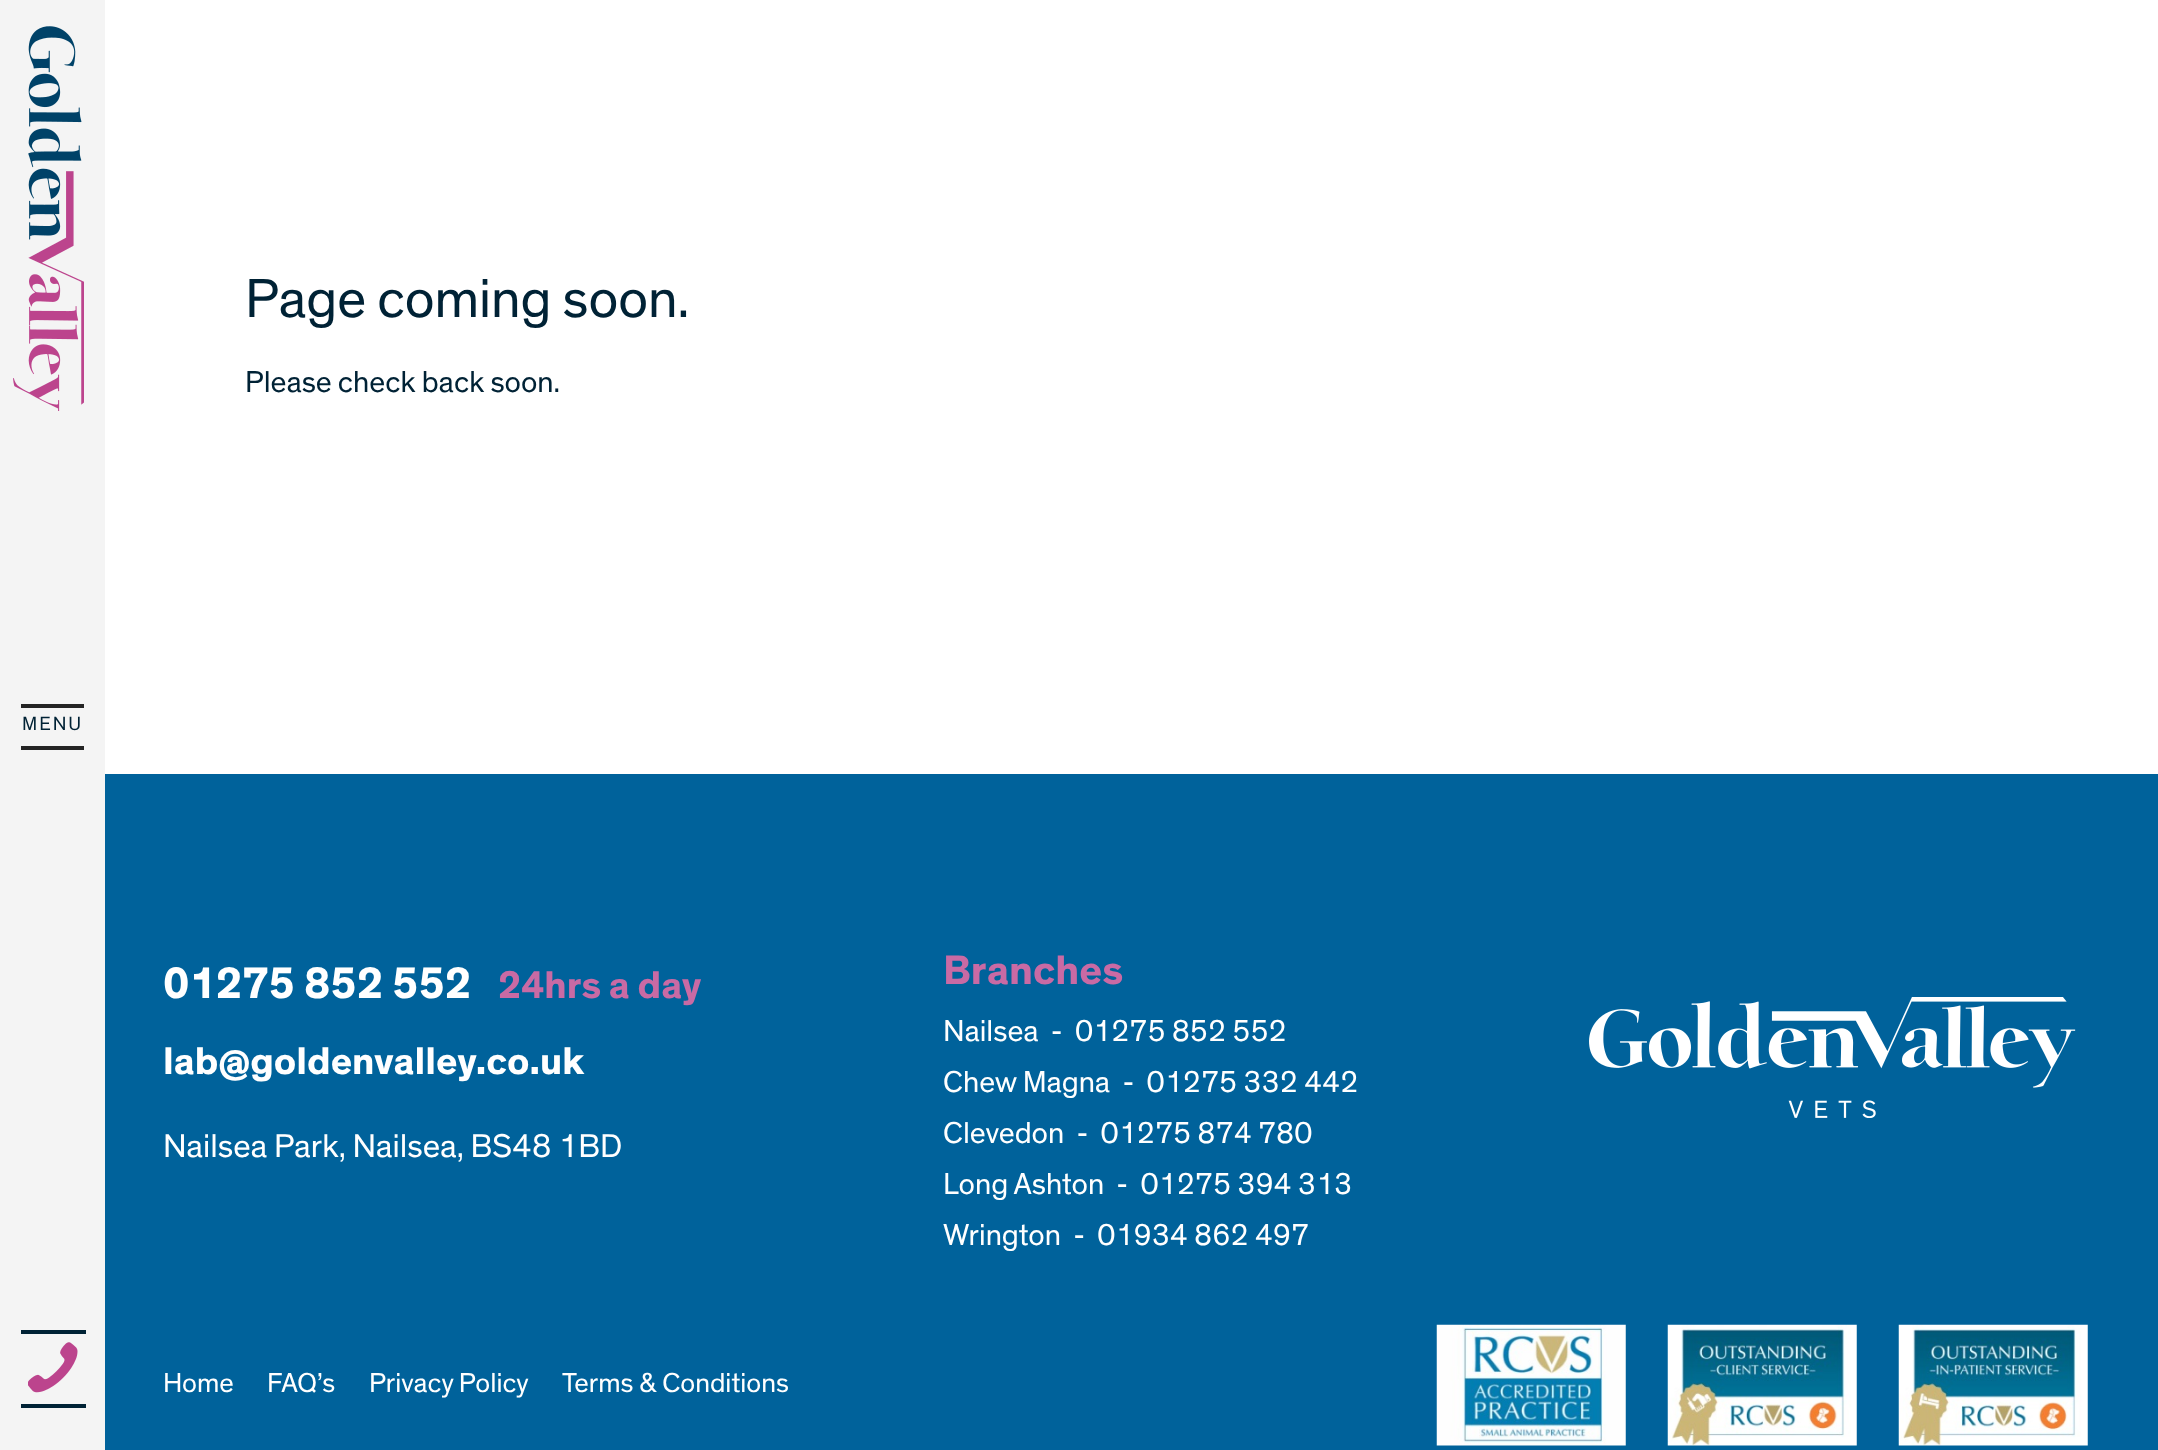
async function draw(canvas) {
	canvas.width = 2158;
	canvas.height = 1450;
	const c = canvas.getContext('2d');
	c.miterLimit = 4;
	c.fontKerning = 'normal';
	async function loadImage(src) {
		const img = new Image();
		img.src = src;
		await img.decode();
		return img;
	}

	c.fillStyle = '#fff';
	c.fillRect(0, 0, 2158, 1450);
	c.fillStyle = '#f4f4f4';
	c.fillRect(0, 0, 105, 1450);
	c.drawImage(await loadImage('img1.png'), 13, 26, 71, 385);
	c.fillStyle = '#242424';
	c.fillRect(21, 704, 63, 4);
	c.letterSpacing = '2px';
	c.font = '19.5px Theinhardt';
	c.fillStyle = '#002235';
	c.fillText('MENU', 22, 730);
	for (const [x, y, w, h, color] of [
		[21, 746, 63, 4, '#242424'],
		[21, 1330, 65, 4, '#002235'],
		[21, 1404, 65, 4, '#002235'],
	]) {
		c.fillStyle = color;
		c.fillRect(x, y, w, h);
	}
	c.drawImage(await loadImage('img2.png'), 28, 1342, 50, 51);
	c.letterSpacing = '0px';
	c.font = '56px Theinhardt';
	c.fillText('Page coming soon.', 245, 317);
	c.font = '30.75px Theinhardt';
	c.fillText('Please check back soon.', 245, 392);
	c.fillStyle = '#00629b';
	c.fillRect(105, 774, 2053, 676);
	c.font = 'bold 44.75px Theinhardt';
	c.fillStyle = '#fff';
	c.fillText('01275 852 552', 163, 998);
	c.font = 'bold 39.25px Theinhardt';
	c.fillStyle = '#c96aa4';
	c.fillText('24hrs a day', 498, 998);
	c.fillStyle = '#fff';
	c.fillText('lab@goldenvalley.co.uk', 163, 1074);
	c.font = '33.6px Theinhardt';
	c.fillText('Nailsea Park, Nailsea, BS48 1BD', 163, 1157);
	c.font = 'bold 42px Theinhardt';
	c.fillStyle = '#c96aa4';
	c.fillText('Branches', 943, 984);
	c.font = '30.75px Theinhardt';
	c.fillStyle = '#fff';
	for (const [text, x, y] of [
		['Nailsea  -  01275 852 552', 943, 1041],
		['Chew Magna  -  01275 332 442', 943, 1092],
		['Clevedon  -  01275 874 780', 943, 1143],
		['Long Ashton  -  01275 394 313', 943, 1194],
		['Wrington  -  01934 862 497', 943, 1245],
	]) {
		c.fillText(text, x, y);
	}
	c.drawImage(await loadImage('img3.png'), 1589, 997, 487, 121);
	c.font = '28px Theinhardt';
	for (const [text, x, y] of [
		['Home', 163, 1392],
		['FAQ’s', 267, 1392],
		['Privacy Policy', 369, 1392],
		['Terms & Conditions', 562, 1392],
	]) {
		c.fillText(text, x, y);
	}
	c.drawImage(await loadImage('img4.png'), 1436, 1324, 190, 122);
	c.drawImage(await loadImage('img5.png'), 1667, 1324, 190, 122);
	c.drawImage(await loadImage('img6.png'), 1898, 1324, 190, 122);
}

draw(document.querySelector('canvas'));
